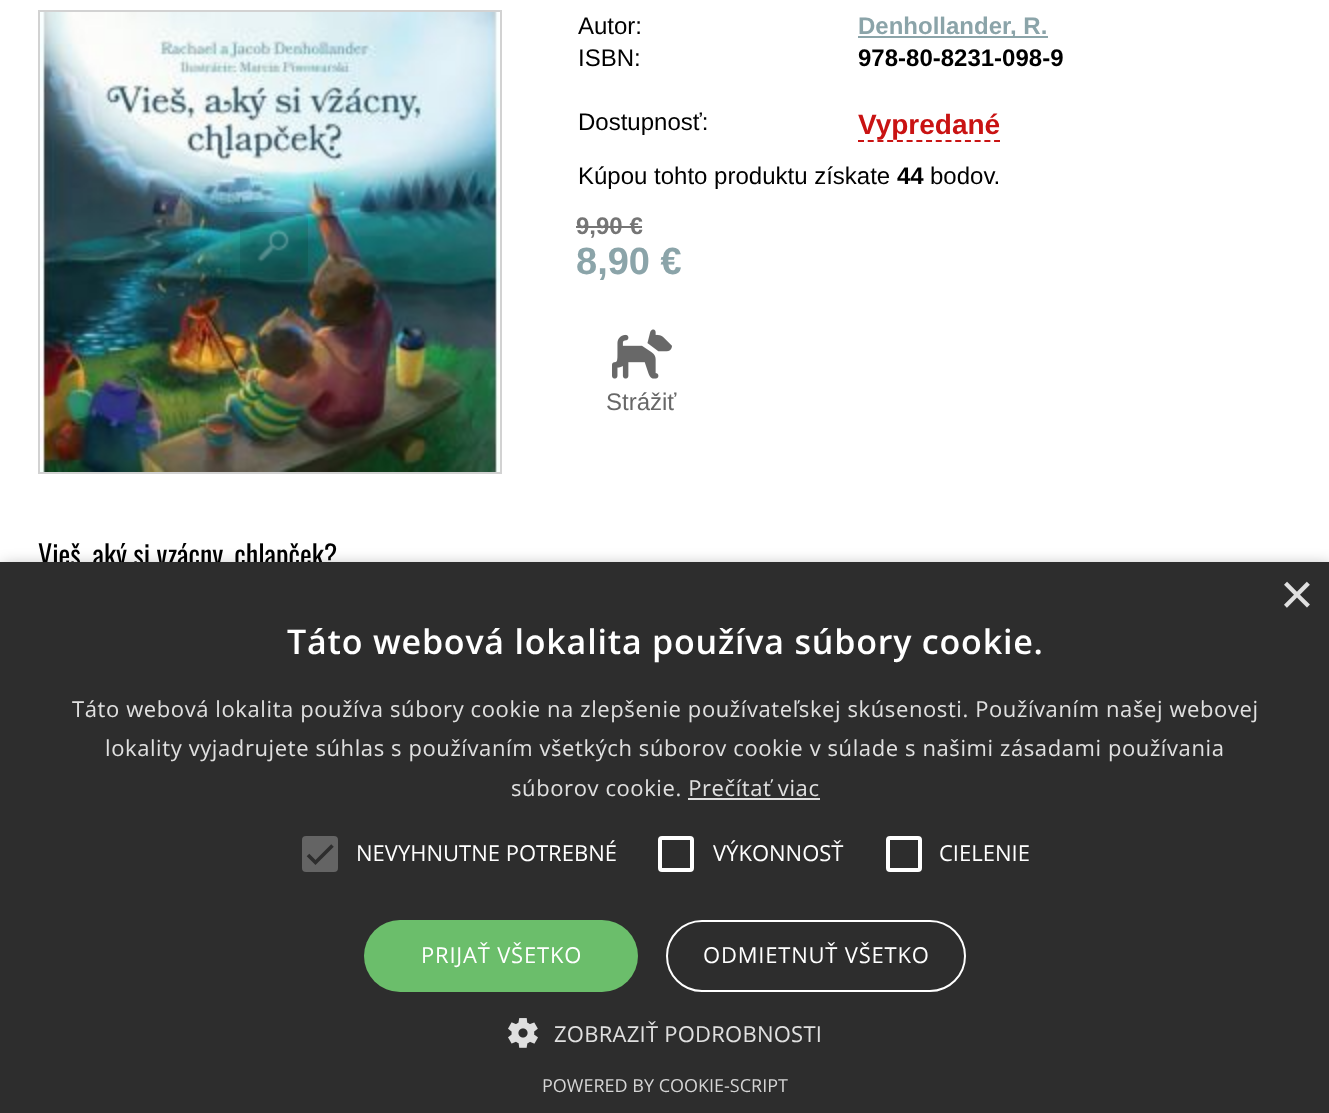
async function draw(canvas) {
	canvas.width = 1329;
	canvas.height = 1113;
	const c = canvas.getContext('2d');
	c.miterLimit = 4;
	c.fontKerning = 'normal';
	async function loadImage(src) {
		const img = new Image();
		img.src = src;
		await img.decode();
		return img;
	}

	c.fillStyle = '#fff';
	c.fillRect(0, 0, 1329, 1113);
	c.strokeStyle = '#d2d2d2';
	c.lineWidth = 2;
	c.strokeRect(39, 11, 462, 462);
	c.drawImage(await loadImage('img1.png'), 40, 12, 460, 460);
	c.drawImage(await loadImage('img2.png'), 240, 212, 68, 68);
	c.font = '24px Liberation Sans';
	c.fillStyle = '#000';
	c.fillText('Autor:', 578, 34);
	c.fillStyle = '#8ba4a9';
	c.fillRect(858, 36, 190, 2);
	c.font = 'bold 24px Liberation Sans';
	c.fillText('Denhollander, R.', 858, 34);
	c.font = '24px Liberation Sans';
	c.fillStyle = '#000';
	c.fillText('ISBN:', 578, 66);
	c.font = 'bold 24px Liberation Sans';
	c.fillText('978-80-8231-098-9', 858, 66);
	c.font = '24px Liberation Sans';
	c.fillText('Dostupnosť:', 578, 130);
	c.font = 'bold 28px Liberation Sans';
	c.fillStyle = '#c91313';
	c.fillText('Vypredané', 858, 134);
	c.beginPath();
	c.moveTo(858, 141);
	c.lineTo(1000, 141);
	c.strokeStyle = '#c91313';
	c.setLineDash([6, 3.72]);
	c.stroke();
	c.font = '24px Liberation Sans';
	c.fillStyle = '#000';
	c.fillText('Kúpou tohto produktu získate', 578, 184);
	c.font = 'bold 24px Liberation Sans';
	c.fillText('44', 897, 184);
	c.font = '24px Liberation Sans';
	c.fillText('bodov.', 930, 184);
	c.font = 'bold 24px Liberation Sans';
	c.fillStyle = '#757575';
	c.fillText('9,90 €', 576, 234);
	c.fillRect(576, 226, 66, 2);
	c.font = 'bold 38px Liberation Sans';
	c.fillStyle = '#8ba4a9';
	c.fillText('8,90 €', 576, 274);
	c.drawImage(await loadImage('img3.png'), 612, 329, 60, 50);
	c.font = '24px Liberation Sans';
	c.fillStyle = '#686868';
	c.fillText('Strážiť', 606, 410);
	c.font = '28px Oswald';
	c.fillStyle = '#000';
	c.fillText('Vieš, aký si vzácny, chlapček?', 38, 566);
	c.fillStyle = '#00000059';
	c.filter = 'blur(8px)';
	c.beginPath();
	c.rect(2, 566, 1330, 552);
	c.fill();
	c.filter = 'none';
	c.fillStyle = '#2d2d2d';
	c.fillRect(0, 562, 1329, 551);
	c.font = '58px Liberation Sans';
	c.fillStyle = '#e0e0e0';
	c.fillText('×', 1280, 614);
	c.letterSpacing = '0.8px';
	c.font = '600 34px Open Sans';
	c.fillStyle = '#fff';
	c.fillText('Táto webová lokalita používa súbory cookie.', 287, 654);
	c.letterSpacing = '0.6px';
	c.font = '22px Open Sans';
	c.fillStyle = '#e0e0e0';
	for (const [text, x, y] of [
		['Táto webová lokalita používa súbory cookie na zlepšenie používateľskej skúsenosti. Používaním našej webovej', 72, 717],
		['lokality vyjadrujete súhlas s používaním všetkých súborov cookie v súlade s našimi zásadami používania', 105, 756],
		['súborov cookie. Prečítať viac', 511, 796],
	]) {
		c.fillText(text, x, y);
	}
	c.fillRect(688, 798, 132, 2);
	c.fillStyle = '#646464';
	c.beginPath();
	c.roundRect(302, 836, 36, 36, 4);
	c.fill();
	c.beginPath();
	c.moveTo(308, 855);
	c.lineTo(315.5, 862.5);
	c.lineTo(332.5, 845.5);
	c.strokeStyle = '#2d2d2d';
	c.lineWidth = 3.6;
	c.setLineDash([]);
	c.stroke();
	c.letterSpacing = '0px';
	c.fillStyle = '#fff';
	c.fillText('NEVYHNUTNE POTREBNÉ', 356, 861);
	c.beginPath();
	c.roundRect(660, 838, 32, 32, 2);
	c.strokeStyle = '#fff';
	c.lineWidth = 4;
	c.stroke();
	c.fillText('VÝKONNOSŤ', 713, 861);
	c.beginPath();
	c.roundRect(888, 838, 32, 32, 2);
	c.stroke();
	c.fillText('CIELENIE', 939, 861);
	c.fillStyle = '#6bbe6b';
	c.beginPath();
	c.roundRect(364, 920, 274, 72, 36);
	c.fill();
	c.letterSpacing = '0.8px';
	c.fillStyle = '#fff';
	c.fillText('PRIJAŤ VŠETKO', 421, 963);
	c.beginPath();
	c.roundRect(667, 921, 298, 70, 35);
	c.lineWidth = 2;
	c.stroke();
	c.fillText('ODMIETNUŤ VŠETKO', 703, 963);
	c.drawImage(await loadImage('img4.png'), 508, 1018, 30, 30);
	c.letterSpacing = '0.25px';
	c.fillStyle = '#e0e0e0';
	c.fillText('ZOBRAZIŤ PODROBNOSTI', 554, 1042);
	c.letterSpacing = '0px';
	c.font = '18px Open Sans';
	c.fillStyle = '#d5d5d5';
	c.fillText('POWERED BY COOKIE-SCRIPT', 542, 1092);
}

draw(document.querySelector('canvas'));
